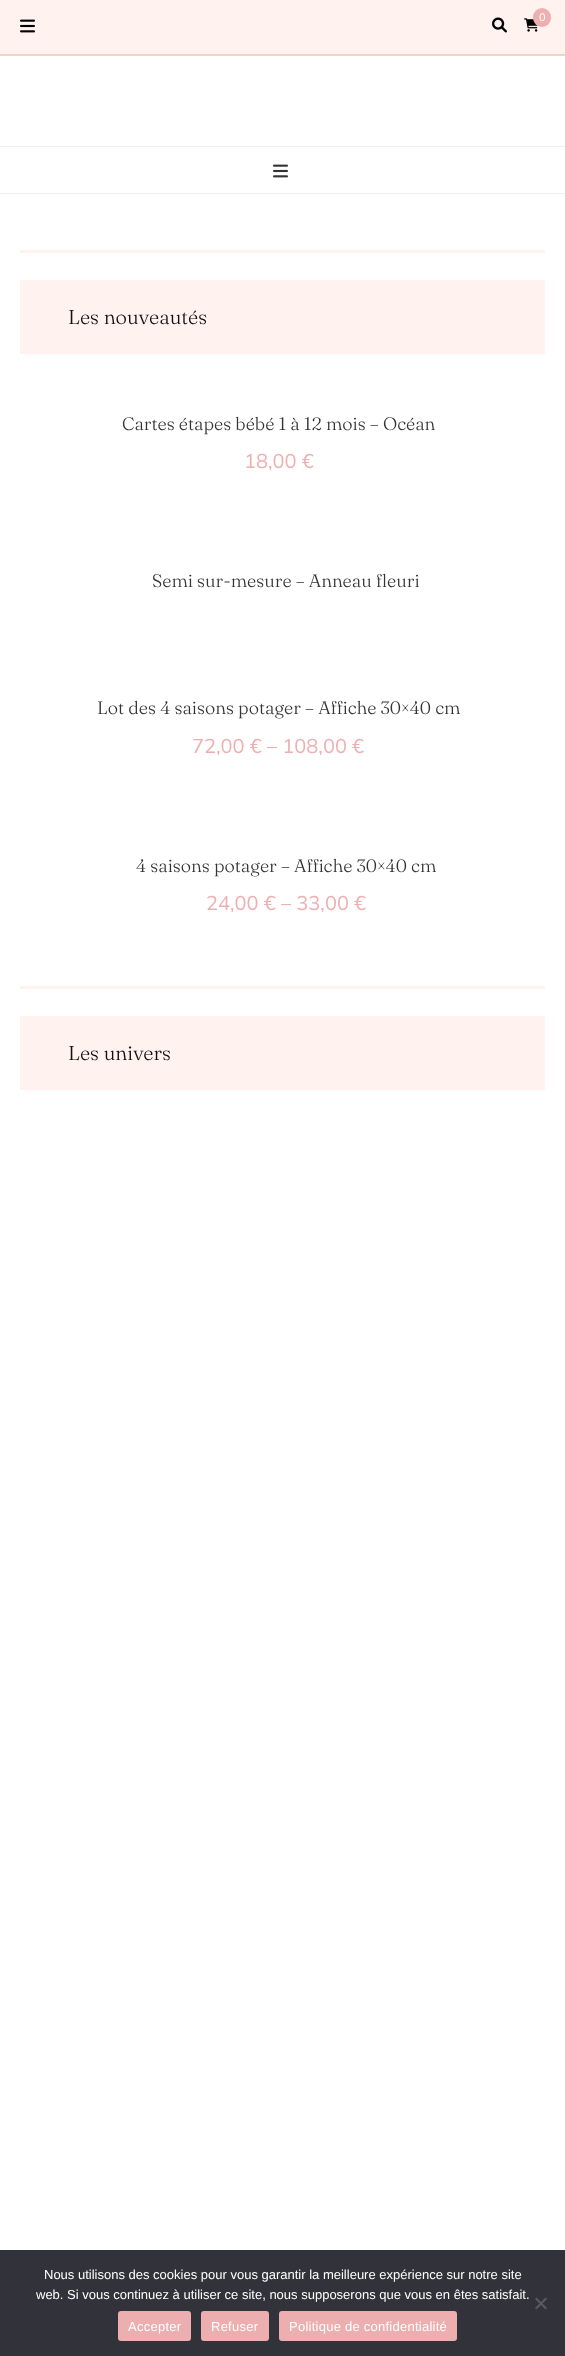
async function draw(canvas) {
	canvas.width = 565;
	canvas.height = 2356;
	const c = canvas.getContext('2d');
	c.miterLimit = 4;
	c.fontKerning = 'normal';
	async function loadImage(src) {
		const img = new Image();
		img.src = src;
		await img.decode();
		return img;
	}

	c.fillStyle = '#fff';
	c.fillRect(0, 0, 565, 2356);
	c.fillStyle = '#fff2ef';
	c.fillRect(0, 0, 565, 54);
	c.fillStyle = '#f1d2ca';
	c.fillRect(0, 54, 565, 2);
	c.drawImage(await loadImage('img1.png'), 492, 17, 15, 16);
	c.drawImage(await loadImage('img2.png'), 524, 18, 14, 14);
	c.fillStyle = '#edafb0';
	c.beginPath();
	c.roundRect(533, 8, 18, 19, 9);
	c.fill();
	c.font = '11px Mulish';
	c.fillStyle = '#fff';
	c.fillText('0', 539, 21);
	c.drawImage(await loadImage('img3.png'), 20, 19, 15, 14);
	c.fillStyle = '#eee';
	c.fillRect(0, 146, 565, 1);
	c.fillRect(0, 193, 565, 1);
	c.drawImage(await loadImage('img4.png'), 273, 164, 15, 14);
	c.fillStyle = '#fff2ef';
	c.fillRect(20, 250, 525, 3);
	c.fillRect(20, 280, 525, 74);
	c.font = '300 20px Fraunces';
	c.fillStyle = '#111';
	c.fillText('Les nouveautés', 68, 324);
	c.font = '300 18px Fraunces';
	c.fillStyle = '#333';
	c.fillText('Cartes étapes bébé 1 à 12 mois – Océan', 122, 430);
	c.font = '20px Mulish';
	c.fillStyle = '#edafb0';
	c.fillText('18,00 €', 244, 468);
	c.font = '300 18px Fraunces';
	c.fillStyle = '#333';
	c.fillText('Semi sur-mesure – Anneau fleuri', 152, 587);
	c.fillText('Lot des 4 saisons potager – Affiche 30×40 cm', 97, 714);
	c.font = '20px Mulish';
	c.fillStyle = '#edafb0';
	c.fillText('72,00 € – 108,00 €', 192, 753);
	c.font = '300 18px Fraunces';
	c.fillStyle = '#333';
	c.fillText('4 saisons potager – Affiche 30×40 cm', 136, 872);
	c.font = '20px Mulish';
	c.fillStyle = '#edafb0';
	c.fillText('24,00 € – 33,00 €', 206, 910);
	c.fillStyle = '#fff2ef';
	c.fillRect(20, 986, 525, 3);
	c.fillRect(20, 1016, 525, 74);
	c.font = '300 20px Fraunces';
	c.fillStyle = '#111';
	c.fillText('Les univers', 68, 1060);
	c.fillStyle = '#32323a';
	c.fillRect(0, 2250, 565, 106);
	c.font = '13px Liberation Sans';
	c.fillStyle = '#fff';
	c.fillText('Nous utilisons des cookies pour vous garantir la meilleure expérience sur notre site', 44, 2279);
	c.fillText('web. Si vous continuez à utiliser ce site, nous supposerons que vous en êtes satisfait.', 36, 2299);
	c.fillStyle = '#59595d';
	c.beginPath();
	c.moveTo(545.5, 2297.5);
	c.lineTo(547, 2299);
	c.lineTo(536.5, 2309.5);
	c.lineTo(535, 2308);
	c.closePath();
	c.fill();
	c.beginPath();
	c.moveTo(535, 2299);
	c.lineTo(536.5, 2297.5);
	c.lineTo(547, 2308);
	c.lineTo(545.5, 2309.5);
	c.closePath();
	c.fill();
	c.fillStyle = '#ecaeaf';
	c.beginPath();
	c.roundRect(118, 2311, 73, 30, 3);
	c.fill();
	c.letterSpacing = '0.25px';
	c.fillStyle = '#fff';
	c.fillText('Accepter', 128, 2331);
	c.fillStyle = '#ecaeaf';
	c.beginPath();
	c.roundRect(201, 2311, 68, 30, 3);
	c.fill();
	c.fillStyle = '#fff';
	c.fillText('Refuser', 211, 2331);
	c.fillStyle = '#ecaeaf';
	c.beginPath();
	c.roundRect(279, 2311, 178, 30, 3);
	c.fill();
	c.fillStyle = '#fff';
	c.fillText('Politique de confidentialité', 289, 2331);
}

draw(document.querySelector('canvas'));
